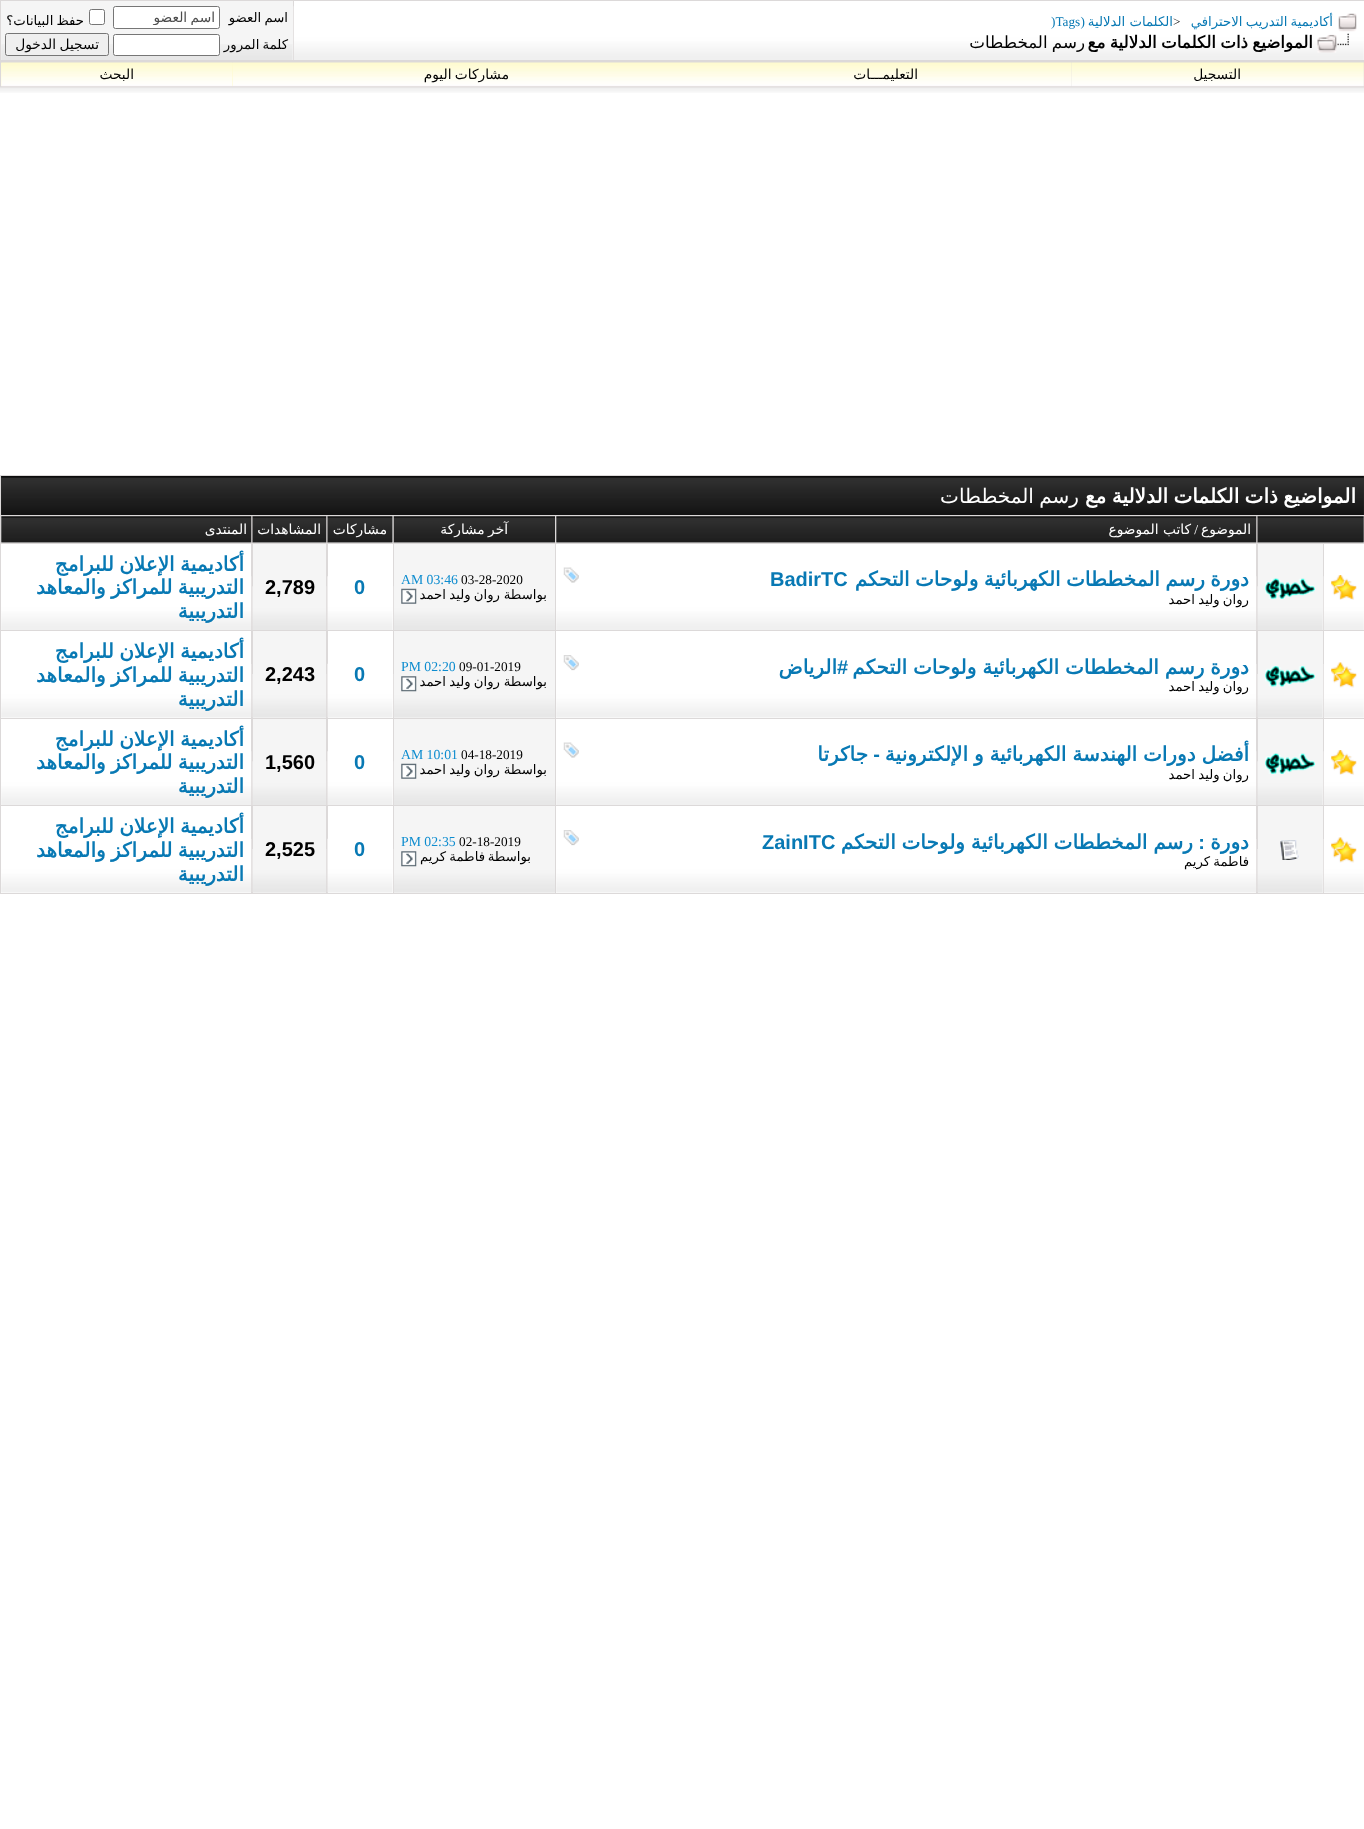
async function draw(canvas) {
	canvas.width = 1364;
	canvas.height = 1829;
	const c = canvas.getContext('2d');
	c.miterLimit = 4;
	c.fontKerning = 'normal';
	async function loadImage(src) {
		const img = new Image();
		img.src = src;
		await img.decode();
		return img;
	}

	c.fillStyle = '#fff';
	c.fillRect(0, 0, 1364, 1829);
	c.fillStyle = '#dcd9d9';
	c.fillRect(0, 0, 1364, 88);
	c.fillStyle = '#fff';
	c.fillRect(294, 1, 1070, 59);
	c.drawImage(await loadImage('img1.png'), 293, 6, 1071, 54);
	c.drawImage(await loadImage('img2.png'), 1338, 13, 19, 19);
	c.wordSpacing = '-1px';
	c.direction = 'rtl';
	c.font = '13.25px DejaVu Sans';
	c.fillStyle = '#0879b4';
	c.fillText('أكاديمية التدريب الاحترافي', 1333, 26);
	c.wordSpacing = '0px';
	c.direction = 'ltr';
	c.font = '13.25px Liberation Serif';
	c.fillStyle = '#000';
	c.fillText('>', 1173, 26);
	c.direction = 'rtl';
	c.font = '13.25px DejaVu Sans';
	c.fillStyle = '#0879b4';
	c.fillText('الكلمات الدلالية', 1173, 26);
	c.font = '13.25px Liberation Serif';
	c.fillText('(', 1085, 26);
	c.direction = 'ltr';
	c.fillText(')Tags', 1051, 26);
	c.drawImage(await loadImage('img3.png'), 1317, 33, 32, 20);
	c.wordSpacing = '-1px';
	c.direction = 'rtl';
	c.font = 'bold 16.7px DejaVu Sans';
	c.fillStyle = '#000';
	c.fillText('المواضيع ذات الكلمات الدلالية مع', 1313, 48);
	c.font = '16.7px DejaVu Sans';
	c.fillText('رسم المخططات', 1085, 48);
	c.fillStyle = '#f5f5f5';
	c.fillRect(1, 1, 292, 59);
	c.drawImage(await loadImage('img4.png'), 1, 44, 292, 16);
	c.font = '13.25px DejaVu Sans';
	c.fillStyle = '#000';
	c.fillText('اسم العضو', 288, 22);
	c.fillStyle = '#fff';
	c.beginPath();
	c.roundRect(113.5, 6.5, 106, 22, 2);
	c.fill();
	c.strokeStyle = '#767676';
	c.stroke();
	c.save();
	c.beginPath();
	c.rect(118, 9, 97, 16);
	c.clip();
	c.font = '13.75px DejaVu Sans';
	c.fillStyle = '#4c4c4c';
	c.fillText('اسم العضو', 215, 22);
	c.restore();
	c.beginPath();
	c.roundRect(89.5, 9.5, 15, 15, 2);
	c.fill();
	c.stroke();
	c.fillStyle = '#000';
	c.fillText('حفظ البيانات؟', 84, 25);
	c.fillText('كلمة المرور', 288, 49);
	c.fillStyle = '#fff';
	c.beginPath();
	c.roundRect(113.5, 34.5, 106, 21, 2);
	c.fill();
	c.stroke();
	c.fillStyle = '#efefef';
	c.beginPath();
	c.roundRect(5.5, 33.5, 103, 22, 2);
	c.fill();
	c.stroke();
	c.font = '13.75px DejaVu Sans';
	c.fillStyle = '#000';
	c.fillText('تسجيل الدخول', 99, 49);
	c.drawImage(await loadImage('img5.png'), 1071, 62, 293, 25);
	c.wordSpacing = '0px';
	c.fillText('التسجيل', 1241, 79);
	c.drawImage(await loadImage('img6.png'), 700, 62, 371, 25);
	c.fillText('التعليمـــات', 918, 79);
	c.drawImage(await loadImage('img7.png'), 232, 62, 468, 25);
	c.wordSpacing = '-1px';
	c.fillText('مشاركات اليوم', 509, 79);
	c.fillStyle = '#fefbcd';
	c.fillRect(1, 63, 232, 23);
	c.drawImage(await loadImage('img8.png'), 1, 62, 232, 25);
	c.wordSpacing = '0px';
	c.fillStyle = '#000';
	c.fillText('البحث', 134, 79);
	c.drawImage(await loadImage('img9.png'), 0, 87, 1364, 6);
	c.fillStyle = '#dcd9d9';
	c.fillRect(0, 475, 1364, 419);
	c.fillStyle = '#333';
	c.fillRect(1, 476, 1363, 39);
	c.drawImage(await loadImage('img10.png'), 1, 476, 1363, 39);
	c.wordSpacing = '-1px';
	c.font = 'bold 20px DejaVu Sans';
	c.fillStyle = '#fff';
	c.fillText('المواضيع ذات الكلمات الدلالية مع', 1356, 503);
	c.font = '20px DejaVu Sans';
	c.fillText('رسم المخططات', 1079, 503);
	c.fillRect(1258, 516, 106, 27);
	c.drawImage(await loadImage('img11.png'), 1257, 516, 107, 27);
	c.fillRect(556, 516, 700, 27);
	c.drawImage(await loadImage('img12.png'), 556, 516, 701, 27);
	c.wordSpacing = '0px';
	c.font = '13.75px DejaVu Sans';
	c.fillText('الموضوع', 1251, 534);
	c.font = '13.75px Liberation Serif';
	c.fillText('/', 1198, 534);
	c.font = '13.75px DejaVu Sans';
	c.fillText('كاتب الموضوع', 1191, 534);
	c.fillRect(394, 516, 161, 27);
	c.drawImage(await loadImage('img13.png'), 393, 516, 162, 27);
	c.wordSpacing = '-1px';
	c.fillText('آخر مشاركة', 508, 534);
	c.fillRect(328, 516, 65, 27);
	c.drawImage(await loadImage('img14.png'), 327, 516, 66, 27);
	c.wordSpacing = '0px';
	c.fillText('مشاركات', 387, 534);
	c.fillRect(253, 516, 73, 27);
	c.drawImage(await loadImage('img15.png'), 252, 516, 75, 27);
	c.fillText('المشاهدات', 321, 534);
	c.fillRect(1, 516, 250, 27);
	c.drawImage(await loadImage('img16.png'), 1, 516, 251, 27);
	c.fillText('المنتدى', 247, 534);
	c.fillRect(1324, 544, 40, 86);
	c.drawImage(await loadImage('img17.png'), 1323, 576, 41, 54);
	c.drawImage(await loadImage('img18.png'), 1331, 575, 26, 25);
	c.fillStyle = '#f5f5f5';
	c.fillRect(1258, 544, 65, 86);
	c.drawImage(await loadImage('img19.png'), 1257, 586, 66, 44);
	c.drawImage(await loadImage('img20.png'), 1265, 578, 50, 21);
	c.fillStyle = '#fff';
	c.fillRect(556, 544, 700, 86);
	c.drawImage(await loadImage('img21.png'), 556, 576, 701, 54);
	c.wordSpacing = '-1px';
	c.font = 'bold 20px DejaVu Sans';
	c.fillStyle = '#0879b4';
	c.fillText('دورة رسم المخططات الكهربائية ولوحات التحكم', 1249, 586);
	c.wordSpacing = '0px';
	c.direction = 'ltr';
	c.font = 'bold 20px Liberation Sans';
	c.fillText('BadirTC', 770, 586);
	c.drawImage(await loadImage('img22.png'), 563, 567, 16, 16);
	c.wordSpacing = '-1px';
	c.direction = 'rtl';
	c.font = '13.25px DejaVu Sans';
	c.fillStyle = '#000';
	c.fillText('روان وليد احمد', 1249, 604);
	c.fillStyle = '#f5f5f5';
	c.fillRect(394, 544, 161, 43);
	c.drawImage(await loadImage('img23.png'), 393, 586, 162, 44);
	c.wordSpacing = '0px';
	c.direction = 'ltr';
	c.font = '13.25px Liberation Serif';
	c.fillStyle = '#000';
	c.fillText('03-28-2020', 461, 584);
	c.font = '13.75px Liberation Serif';
	c.fillStyle = '#0d8ccf';
	c.fillText('AM 03:46', 401, 584);
	c.direction = 'rtl';
	c.font = '13.25px DejaVu Sans';
	c.fillStyle = '#000';
	c.fillText('بواسطة', 547, 599);
	c.wordSpacing = '-1px';
	c.fillText('روان وليد احمد', 500, 599);
	c.drawImage(await loadImage('img24.png'), 401, 588, 16, 16);
	c.fillStyle = '#fff';
	c.fillRect(328, 544, 65, 86);
	c.drawImage(await loadImage('img25.png'), 327, 576, 66, 54);
	c.wordSpacing = '0px';
	c.direction = 'ltr';
	c.font = 'bold 20px Liberation Sans';
	c.fillStyle = '#0879b4';
	c.fillText('0', 354, 594);
	c.fillStyle = '#f5f5f5';
	c.fillRect(253, 544, 73, 43);
	c.drawImage(await loadImage('img26.png'), 252, 586, 75, 44);
	c.fillStyle = '#000';
	c.fillText('2,789', 265, 594);
	c.fillStyle = '#fff';
	c.fillRect(1, 544, 250, 86);
	c.drawImage(await loadImage('img27.png'), 1, 576, 251, 54);
	c.wordSpacing = '-1px';
	c.direction = 'rtl';
	c.font = 'bold 20px DejaVu Sans';
	c.fillStyle = '#0879b4';
	c.fillText('أكاديمية الإعلان للبرامج', 244, 571);
	c.fillText('التدريبية للمراكز والمعاهد', 244, 594);
	c.wordSpacing = '0px';
	c.fillText('التدريبية', 244, 618);
	c.fillStyle = '#fff';
	c.fillRect(1324, 631, 40, 87);
	c.drawImage(await loadImage('img28.png'), 1323, 664, 41, 54);
	c.drawImage(await loadImage('img29.png'), 1331, 662, 26, 26);
	c.fillStyle = '#f5f5f5';
	c.fillRect(1258, 631, 65, 87);
	c.drawImage(await loadImage('img30.png'), 1257, 674, 66, 44);
	c.drawImage(await loadImage('img31.png'), 1265, 666, 50, 21);
	c.fillStyle = '#fff';
	c.fillRect(556, 631, 700, 87);
	c.drawImage(await loadImage('img32.png'), 556, 664, 701, 54);
	c.wordSpacing = '-0.5px';
	c.fillStyle = '#0879b4';
	c.fillText('دورة رسم المخططات الكهربائية ولوحات التحكم', 1249, 674);
	c.wordSpacing = '0px';
	c.font = 'bold 20px Liberation Sans';
	c.fillText('#', 848, 674);
	c.font = 'bold 20px DejaVu Sans';
	c.fillText('الرياض', 837, 674);
	c.drawImage(await loadImage('img33.png'), 563, 655, 16, 16);
	c.wordSpacing = '-1px';
	c.font = '13.25px DejaVu Sans';
	c.fillStyle = '#000';
	c.fillText('روان وليد احمد', 1249, 691);
	c.fillStyle = '#f5f5f5';
	c.fillRect(394, 631, 161, 87);
	c.drawImage(await loadImage('img34.png'), 393, 674, 162, 44);
	c.wordSpacing = '0px';
	c.direction = 'ltr';
	c.font = '13.25px Liberation Serif';
	c.fillStyle = '#000';
	c.fillText('09-01-2019', 459, 671);
	c.font = '13.75px Liberation Serif';
	c.fillStyle = '#0d8ccf';
	c.fillText('PM 02:20', 401, 671);
	c.direction = 'rtl';
	c.font = '13.25px DejaVu Sans';
	c.fillStyle = '#000';
	c.fillText('بواسطة', 547, 686);
	c.wordSpacing = '-1px';
	c.fillText('روان وليد احمد', 500, 686);
	c.drawImage(await loadImage('img35.png'), 401, 676, 16, 16);
	c.fillStyle = '#fff';
	c.fillRect(328, 631, 65, 87);
	c.drawImage(await loadImage('img36.png'), 327, 663, 66, 55);
	c.wordSpacing = '0px';
	c.direction = 'ltr';
	c.font = 'bold 20px Liberation Sans';
	c.fillStyle = '#0879b4';
	c.fillText('0', 354, 681);
	c.fillStyle = '#f5f5f5';
	c.fillRect(253, 631, 73, 87);
	c.drawImage(await loadImage('img37.png'), 252, 674, 75, 44);
	c.fillStyle = '#000';
	c.fillText('2,243', 265, 681);
	c.fillStyle = '#fff';
	c.fillRect(1, 631, 250, 87);
	c.drawImage(await loadImage('img38.png'), 1, 664, 251, 54);
	c.wordSpacing = '-1px';
	c.direction = 'rtl';
	c.font = 'bold 20px DejaVu Sans';
	c.fillStyle = '#0879b4';
	c.fillText('أكاديمية الإعلان للبرامج', 244, 658);
	c.fillText('التدريبية للمراكز والمعاهد', 244, 682);
	c.wordSpacing = '0px';
	c.fillText('التدريبية', 244, 706);
	c.fillStyle = '#fff';
	c.fillRect(1324, 719, 40, 86);
	c.drawImage(await loadImage('img17.png'), 1323, 751, 41, 54);
	c.drawImage(await loadImage('img39.png'), 1331, 750, 26, 25);
	c.fillStyle = '#f5f5f5';
	c.fillRect(1258, 719, 65, 86);
	c.drawImage(await loadImage('img19.png'), 1257, 761, 66, 44);
	c.drawImage(await loadImage('img40.png'), 1265, 753, 50, 21);
	c.fillStyle = '#fff';
	c.fillRect(556, 719, 700, 86);
	c.drawImage(await loadImage('img21.png'), 556, 751, 701, 54);
	c.wordSpacing = '-0.5px';
	c.fillStyle = '#0879b4';
	c.fillText('أفضل دورات الهندسة الكهربائية و الإلكترونية', 1249, 761);
	c.wordSpacing = '0px';
	c.font = 'bold 20px Liberation Sans';
	c.fillText('-', 880, 761);
	c.font = 'bold 20px DejaVu Sans';
	c.fillText('جاكرتا', 868, 761);
	c.drawImage(await loadImage('img22.png'), 563, 742, 16, 16);
	c.wordSpacing = '-1px';
	c.font = '13.25px DejaVu Sans';
	c.fillStyle = '#000';
	c.fillText('روان وليد احمد', 1249, 779);
	c.fillStyle = '#f5f5f5';
	c.fillRect(394, 719, 161, 43);
	c.drawImage(await loadImage('img23.png'), 393, 761, 162, 44);
	c.wordSpacing = '0px';
	c.direction = 'ltr';
	c.font = '13.25px Liberation Serif';
	c.fillStyle = '#000';
	c.fillText('04-18-2019', 461, 759);
	c.font = '13.75px Liberation Serif';
	c.fillStyle = '#0d8ccf';
	c.fillText('AM 10:01', 401, 759);
	c.direction = 'rtl';
	c.font = '13.25px DejaVu Sans';
	c.fillStyle = '#000';
	c.fillText('بواسطة', 547, 774);
	c.wordSpacing = '-1px';
	c.fillText('روان وليد احمد', 500, 774);
	c.drawImage(await loadImage('img24.png'), 401, 763, 16, 16);
	c.fillStyle = '#fff';
	c.fillRect(328, 719, 65, 86);
	c.drawImage(await loadImage('img25.png'), 327, 751, 66, 54);
	c.wordSpacing = '0px';
	c.direction = 'ltr';
	c.font = 'bold 20px Liberation Sans';
	c.fillStyle = '#0879b4';
	c.fillText('0', 354, 769);
	c.fillStyle = '#f5f5f5';
	c.fillRect(253, 719, 73, 43);
	c.drawImage(await loadImage('img26.png'), 252, 761, 75, 44);
	c.fillStyle = '#000';
	c.fillText('1,560', 265, 769);
	c.fillStyle = '#fff';
	c.fillRect(1, 719, 250, 86);
	c.drawImage(await loadImage('img27.png'), 1, 751, 251, 54);
	c.wordSpacing = '-1px';
	c.direction = 'rtl';
	c.font = 'bold 20px DejaVu Sans';
	c.fillStyle = '#0879b4';
	c.fillText('أكاديمية الإعلان للبرامج', 244, 746);
	c.fillText('التدريبية للمراكز والمعاهد', 244, 769);
	c.wordSpacing = '0px';
	c.fillText('التدريبية', 244, 793);
	c.fillStyle = '#fff';
	c.fillRect(1324, 806, 40, 87);
	c.drawImage(await loadImage('img28.png'), 1323, 839, 41, 54);
	c.drawImage(await loadImage('img29.png'), 1331, 837, 26, 26);
	c.fillStyle = '#f5f5f5';
	c.fillRect(1258, 806, 65, 87);
	c.drawImage(await loadImage('img30.png'), 1257, 849, 66, 44);
	c.drawImage(await loadImage('img41.png'), 1280, 840, 19, 20);
	c.fillStyle = '#fff';
	c.fillRect(556, 806, 700, 87);
	c.drawImage(await loadImage('img32.png'), 556, 839, 701, 54);
	c.fillStyle = '#0879b4';
	c.fillText('دورة', 1249, 849);
	c.font = 'bold 20px Liberation Sans';
	c.fillText(':', 1205, 849);
	c.wordSpacing = '-0.5px';
	c.font = 'bold 20px DejaVu Sans';
	c.fillText('رسم المخططات الكهربائية ولوحات التحكم', 1193, 849);
	c.wordSpacing = '0px';
	c.direction = 'ltr';
	c.font = 'bold 20px Liberation Sans';
	c.fillText('ZainITC', 762, 849);
	c.drawImage(await loadImage('img33.png'), 563, 830, 16, 16);
	c.wordSpacing = '-1px';
	c.direction = 'rtl';
	c.font = '13.25px DejaVu Sans';
	c.fillStyle = '#000';
	c.fillText('فاطمة كريم', 1249, 866);
	c.fillStyle = '#f5f5f5';
	c.fillRect(394, 806, 161, 87);
	c.drawImage(await loadImage('img34.png'), 393, 849, 162, 44);
	c.wordSpacing = '0px';
	c.direction = 'ltr';
	c.font = '13.25px Liberation Serif';
	c.fillStyle = '#000';
	c.fillText('02-18-2019', 459, 846);
	c.font = '13.75px Liberation Serif';
	c.fillStyle = '#0d8ccf';
	c.fillText('PM 02:35', 401, 846);
	c.direction = 'rtl';
	c.font = '13.25px DejaVu Sans';
	c.fillStyle = '#000';
	c.fillText('بواسطة', 531, 861);
	c.wordSpacing = '-1px';
	c.fillText('فاطمة كريم', 485, 861);
	c.drawImage(await loadImage('img35.png'), 401, 851, 16, 16);
	c.fillStyle = '#fff';
	c.fillRect(328, 806, 65, 87);
	c.drawImage(await loadImage('img36.png'), 327, 838, 66, 55);
	c.wordSpacing = '0px';
	c.direction = 'ltr';
	c.font = 'bold 20px Liberation Sans';
	c.fillStyle = '#0879b4';
	c.fillText('0', 354, 856);
	c.fillStyle = '#f5f5f5';
	c.fillRect(253, 806, 73, 87);
	c.drawImage(await loadImage('img37.png'), 252, 849, 75, 44);
	c.fillStyle = '#000';
	c.fillText('2,525', 265, 856);
	c.fillStyle = '#fff';
	c.fillRect(1, 806, 250, 87);
	c.drawImage(await loadImage('img38.png'), 1, 839, 251, 54);
	c.wordSpacing = '-1px';
	c.direction = 'rtl';
	c.font = 'bold 20px DejaVu Sans';
	c.fillStyle = '#0879b4';
	c.fillText('أكاديمية الإعلان للبرامج', 244, 833);
	c.fillText('التدريبية للمراكز والمعاهد', 244, 857);
	c.wordSpacing = '0px';
	c.fillText('التدريبية', 244, 881);
}

draw(document.querySelector('canvas'));
